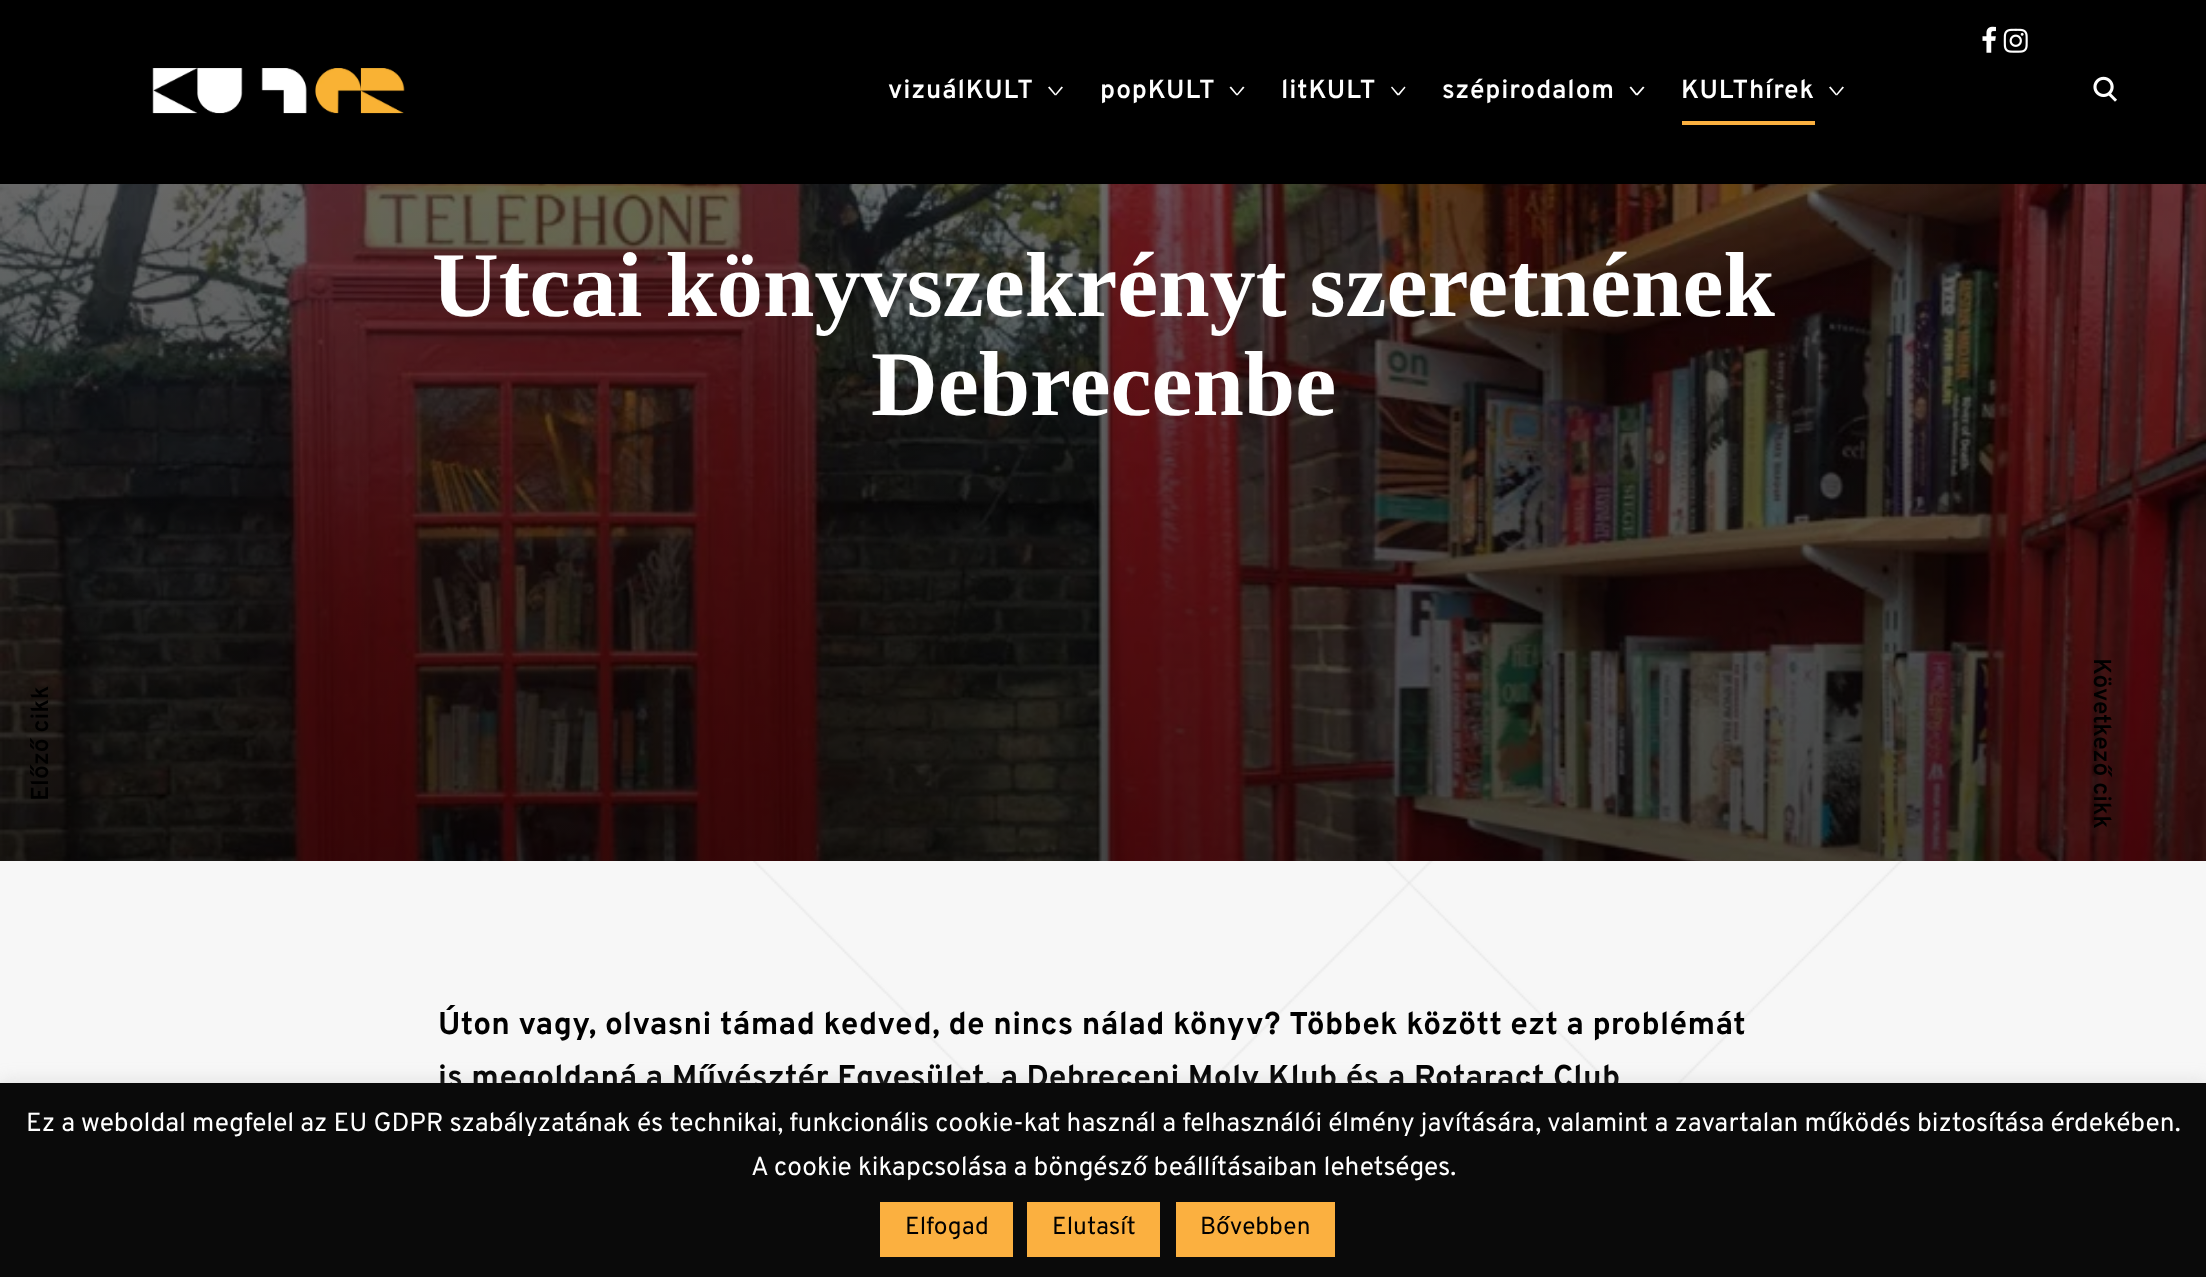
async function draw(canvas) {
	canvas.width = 2206;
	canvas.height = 1277;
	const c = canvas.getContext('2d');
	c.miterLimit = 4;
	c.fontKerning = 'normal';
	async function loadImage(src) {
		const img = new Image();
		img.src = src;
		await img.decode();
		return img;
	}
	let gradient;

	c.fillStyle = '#f7f7f7';
	c.fillRect(0, 0, 2206, 1277);
	c.drawImage(await loadImage('img1.png'), 753, 861, 1150, 222);
	c.fillStyle = '#000';
	c.fillRect(0, 0, 2206, 861);
	c.drawImage(await loadImage('img2.png'), 1982, 26, 14, 27);
	c.drawImage(await loadImage('img3.png'), 2003, 28, 25, 25);
	c.drawImage(await loadImage('img4.png'), 152, 68, 253, 46);
	c.letterSpacing = '0.9px';
	c.font = '600 26.25px Overpass';
	c.fillStyle = '#fff';
	c.fillText('vizuálKULT', 888, 98);
	c.beginPath();
	c.moveTo(1048, 87.5);
	c.lineTo(1049.5, 86.5);
	c.lineTo(1056, 94.5);
	c.lineTo(1055, 95.5);
	c.closePath();
	c.fill();
	c.beginPath();
	c.moveTo(1061.5, 86.5);
	c.lineTo(1063, 87.5);
	c.lineTo(1056, 95.5);
	c.lineTo(1055, 94.5);
	c.closePath();
	c.fill();
	c.fillText('popKULT', 1100, 98);
	c.beginPath();
	c.moveTo(1229.5, 87.5);
	c.lineTo(1231, 86.5);
	c.lineTo(1237.5, 94.5);
	c.lineTo(1236.5, 95.5);
	c.closePath();
	c.fill();
	c.beginPath();
	c.moveTo(1243, 86.5);
	c.lineTo(1244.5, 87.5);
	c.lineTo(1237.5, 95.5);
	c.lineTo(1236.5, 94.5);
	c.closePath();
	c.fill();
	c.fillText('litKULT', 1281, 98);
	c.beginPath();
	c.moveTo(1391, 87.5);
	c.lineTo(1392, 86.5);
	c.lineTo(1399, 94.5);
	c.lineTo(1397.5, 95.5);
	c.closePath();
	c.fill();
	c.beginPath();
	c.moveTo(1404.5, 86.5);
	c.lineTo(1405.5, 87.5);
	c.lineTo(1399, 95.5);
	c.lineTo(1397.5, 94.5);
	c.closePath();
	c.fill();
	c.fillText('szépirodalom', 1442, 98);
	c.beginPath();
	c.moveTo(1629.5, 87.5);
	c.lineTo(1631, 86.5);
	c.lineTo(1637.5, 94.5);
	c.lineTo(1636, 95.5);
	c.closePath();
	c.fill();
	c.beginPath();
	c.moveTo(1643, 86.5);
	c.lineTo(1644.5, 87.5);
	c.lineTo(1637.5, 95.5);
	c.lineTo(1636, 94.5);
	c.closePath();
	c.fill();
	c.fillStyle = '#fbb040';
	c.fillRect(1682, 121, 133, 4);
	c.fillStyle = '#fff';
	c.fillText('KULThírek', 1681, 98);
	c.beginPath();
	c.moveTo(1829, 87.5);
	c.lineTo(1830.5, 86.5);
	c.lineTo(1837, 94.5);
	c.lineTo(1836, 95.5);
	c.closePath();
	c.fill();
	c.beginPath();
	c.moveTo(1842.5, 86.5);
	c.lineTo(1844, 87.5);
	c.lineTo(1837, 95.5);
	c.lineTo(1836, 94.5);
	c.closePath();
	c.fill();
	c.drawImage(await loadImage('img5.png'), 2093, 76, 24, 26);
	c.drawImage(await loadImage('img6.png'), 0, 184, 2206, 677);
	gradient = c.createLinearGradient(1103, -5.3, 1103, 861);
	gradient.addColorStop(0, '#00000000');
	gradient.addColorStop(0.3, '#0000001f');
	gradient.addColorStop(1, '#00000066');
	c.fillStyle = gradient;
	c.fillRect(0, 184, 2206, 677);
	c.letterSpacing = '0px';
	c.font = 'bold 92.4px Liberation Serif';
	c.fillStyle = '#fff';
	c.fillText('Utcai könyvszekrényt szeretnének', 432, 316);
	c.fillText('Debrecenbe', 871, 415);
	c.font = '600 24.5px Overpass';
	c.fillStyle = '#000';
	c.save();
	c.translate(48, 801);
	c.rotate(-90 * Math.PI / 180);
	c.fillText('Előző cikk', 0, 0);
	c.restore();
	c.save();
	c.translate(2094, 658);
	c.rotate(90 * Math.PI / 180);
	c.fillText('Következő cikk', 0, 0);
	c.restore();
	c.letterSpacing = '0.35px';
	c.font = 'bold 31.5px Overpass';
	c.fillText('Úton vagy, olvasni támad kedved, de nincs nálad könyv? Többek között ezt a problémát', 438, 1034);
	c.fillText('is megoldaná a Művésztér Egyesület, a Debreceni Moly Klub és a Rotaract Club', 438, 1087);
	c.fillStyle = '#acabab4d';
	c.filter = 'blur(9px)';
	c.beginPath();
	c.rect(0, 1082, 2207, 194);
	c.fill();
	c.filter = 'none';
	c.fillStyle = '#0a0a0a';
	c.fillRect(0, 1083, 2206, 194);
	c.letterSpacing = '0px';
	c.font = '26.25px Overpass';
	c.fillStyle = '#fff';
	c.fillText('Ez a weboldal megfelel az EU GDPR szabályzatának és technikai, funkcionális cookie-kat használ a felhasználói élmény javítására, valamint a zavartalan működés biztosítása érdekében.', 26, 1131);
	c.fillText('A cookie kikapcsolása a böngésző beállításaiban lehetséges.', 751, 1175);
	c.fillStyle = '#fbb040';
	c.fillRect(880, 1202, 133, 55);
	c.font = '24.5px Overpass';
	c.fillStyle = '#000';
	c.fillText('Elfogad', 905, 1234);
	c.fillStyle = '#fbb040';
	c.fillRect(1027, 1202, 133, 55);
	c.fillStyle = '#000';
	c.fillText('Elutasít', 1052, 1234);
	c.fillStyle = '#fbb040';
	c.fillRect(1176, 1202, 159, 55);
	c.fillStyle = '#000';
	c.fillText('Bővebben', 1200, 1234);
}

draw(document.querySelector('canvas'));
